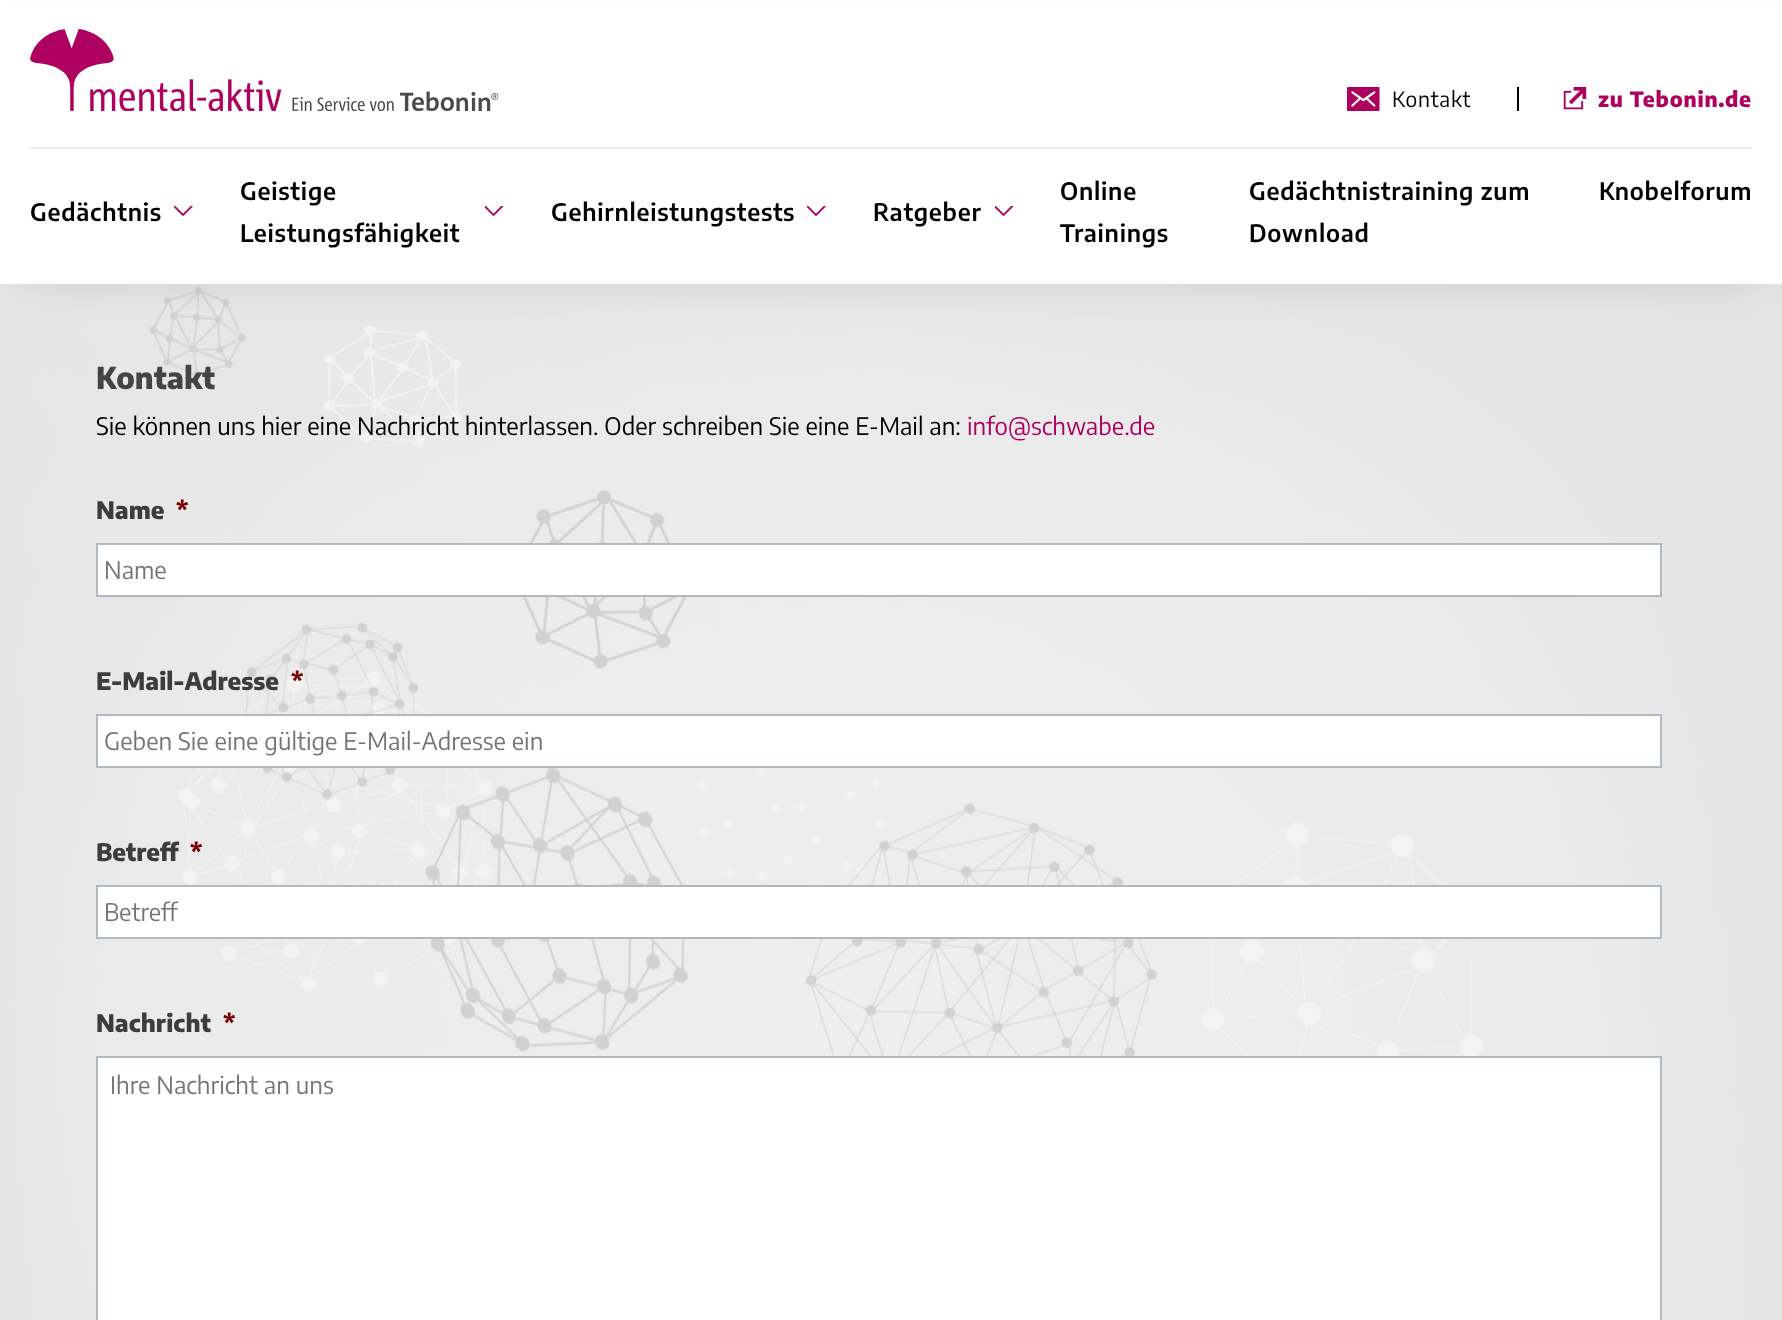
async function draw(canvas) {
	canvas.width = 1782;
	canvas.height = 1320;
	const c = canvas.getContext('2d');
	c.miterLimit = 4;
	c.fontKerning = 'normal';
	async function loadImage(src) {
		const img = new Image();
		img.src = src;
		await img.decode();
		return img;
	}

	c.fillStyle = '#fff';
	c.fillRect(0, 0, 1782, 1320);
	c.drawImage(await loadImage('img6.png'), 0, 284, 1782, 1036);
	c.fillStyle = '#00000026';
	c.filter = 'blur(22.5px)';
	c.beginPath();
	c.rect(23, 38, 1737, 238);
	c.fill();
	c.filter = 'none';
	c.fillStyle = '#fff';
	c.fillRect(0, 4, 1782, 280);
	c.drawImage(await loadImage('img1.png'), 30, 29, 469, 82);
	c.drawImage(await loadImage('img2.png'), 1347, 87, 33, 24);
	c.letterSpacing = '0.75px';
	c.font = '21px Encode Sans Condensed';
	c.fillStyle = '#000';
	c.fillText('Kontakt', 1392, 107);
	c.fillRect(1517, 87, 2, 24);
	c.drawImage(await loadImage('img3.png'), 1563, 87, 24, 23);
	c.font = '800 21px Encode Sans Condensed';
	c.fillStyle = '#ae005f';
	c.fillText('zu Tebonin.de', 1598, 107);
	c.fillStyle = '#e9e9e9';
	c.fillRect(30, 147, 1722, 2);
	c.font = '600 24px Encode Sans Condensed';
	c.fillStyle = '#000';
	c.fillText('Gedächtnis', 30, 221);
	c.drawImage(await loadImage('img4.png'), 174, 206, 19, 10);
	c.fillText('Geistige', 240, 200);
	c.fillText('Leistungsfähigkeit', 240, 242);
	c.drawImage(await loadImage('img5.png'), 485, 206, 19, 10);
	c.fillText('Gehirnleistungstests', 551, 221);
	c.drawImage(await loadImage('img4.png'), 807, 206, 19, 10);
	c.fillText('Ratgeber', 873, 221);
	c.drawImage(await loadImage('img5.png'), 995, 206, 19, 10);
	for (const [text, x, y] of [
		['Online', 1060, 200],
		['Trainings', 1060, 242],
		['Gedächtnistraining zum', 1249, 200],
		['Download', 1249, 242],
		['Knobelforum', 1599, 200],
	]) {
		c.fillText(text, x, y);
	}
	c.letterSpacing = '0px';
	c.font = '800 30px Encode Sans Condensed';
	c.fillStyle = '#444';
	c.fillText('Kontakt', 96, 389);
	c.font = '24px Encode Sans Condensed';
	c.fillStyle = '#000';
	c.fillText('Sie können uns hier eine Nachricht hinterlassen. Oder schreiben Sie eine E-Mail an:', 96, 435);
	c.fillStyle = '#ae005f';
	c.fillText('info@schwabe.de', 967, 435);
	c.font = '800 24px Encode Sans Condensed';
	c.fillStyle = '#3c3c3c';
	c.fillText('Name', 96, 519);
	c.fillStyle = '#790000';
	c.fillText('*', 176, 519);
	c.fillStyle = '#fff';
	c.beginPath();
	c.rect(97, 544, 1564, 52);
	c.fill();
	c.strokeStyle = '#b1b9c3';
	c.lineWidth = 2;
	c.stroke();
	c.font = '24px Encode Sans Condensed';
	c.fillStyle = '#757575';
	c.fillText('Name', 104, 579);
	c.font = '800 24px Encode Sans Condensed';
	c.fillStyle = '#3c3c3c';
	c.fillText('E-Mail-Adresse', 96, 690);
	c.fillStyle = '#790000';
	c.fillText('*', 291, 690);
	c.fillStyle = '#fff';
	c.beginPath();
	c.rect(97, 715, 1564, 52);
	c.fill();
	c.stroke();
	c.font = '24px Encode Sans Condensed';
	c.fillStyle = '#757575';
	c.fillText('Geben Sie eine gültige E-Mail-Adresse ein', 104, 750);
	c.font = '800 24px Encode Sans Condensed';
	c.fillStyle = '#3c3c3c';
	c.fillText('Betreff', 96, 861);
	c.fillStyle = '#790000';
	c.fillText('*', 190, 861);
	c.fillStyle = '#fff';
	c.beginPath();
	c.rect(97, 886, 1564, 52);
	c.fill();
	c.stroke();
	c.font = '24px Encode Sans Condensed';
	c.fillStyle = '#757575';
	c.fillText('Betreff', 104, 921);
	c.font = '800 24px Encode Sans Condensed';
	c.fillStyle = '#3c3c3c';
	c.fillText('Nachricht', 96, 1032);
	c.fillStyle = '#790000';
	c.fillText('*', 223, 1032);
	c.fillStyle = '#fff';
	c.beginPath();
	c.rect(97, 1057, 1564, 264);
	c.fill();
	c.stroke();
	c.font = '24px Encode Sans Condensed';
	c.fillStyle = '#757575';
	c.fillText('Ihre Nachricht an uns', 110, 1094);
}

draw(document.querySelector('canvas'));
